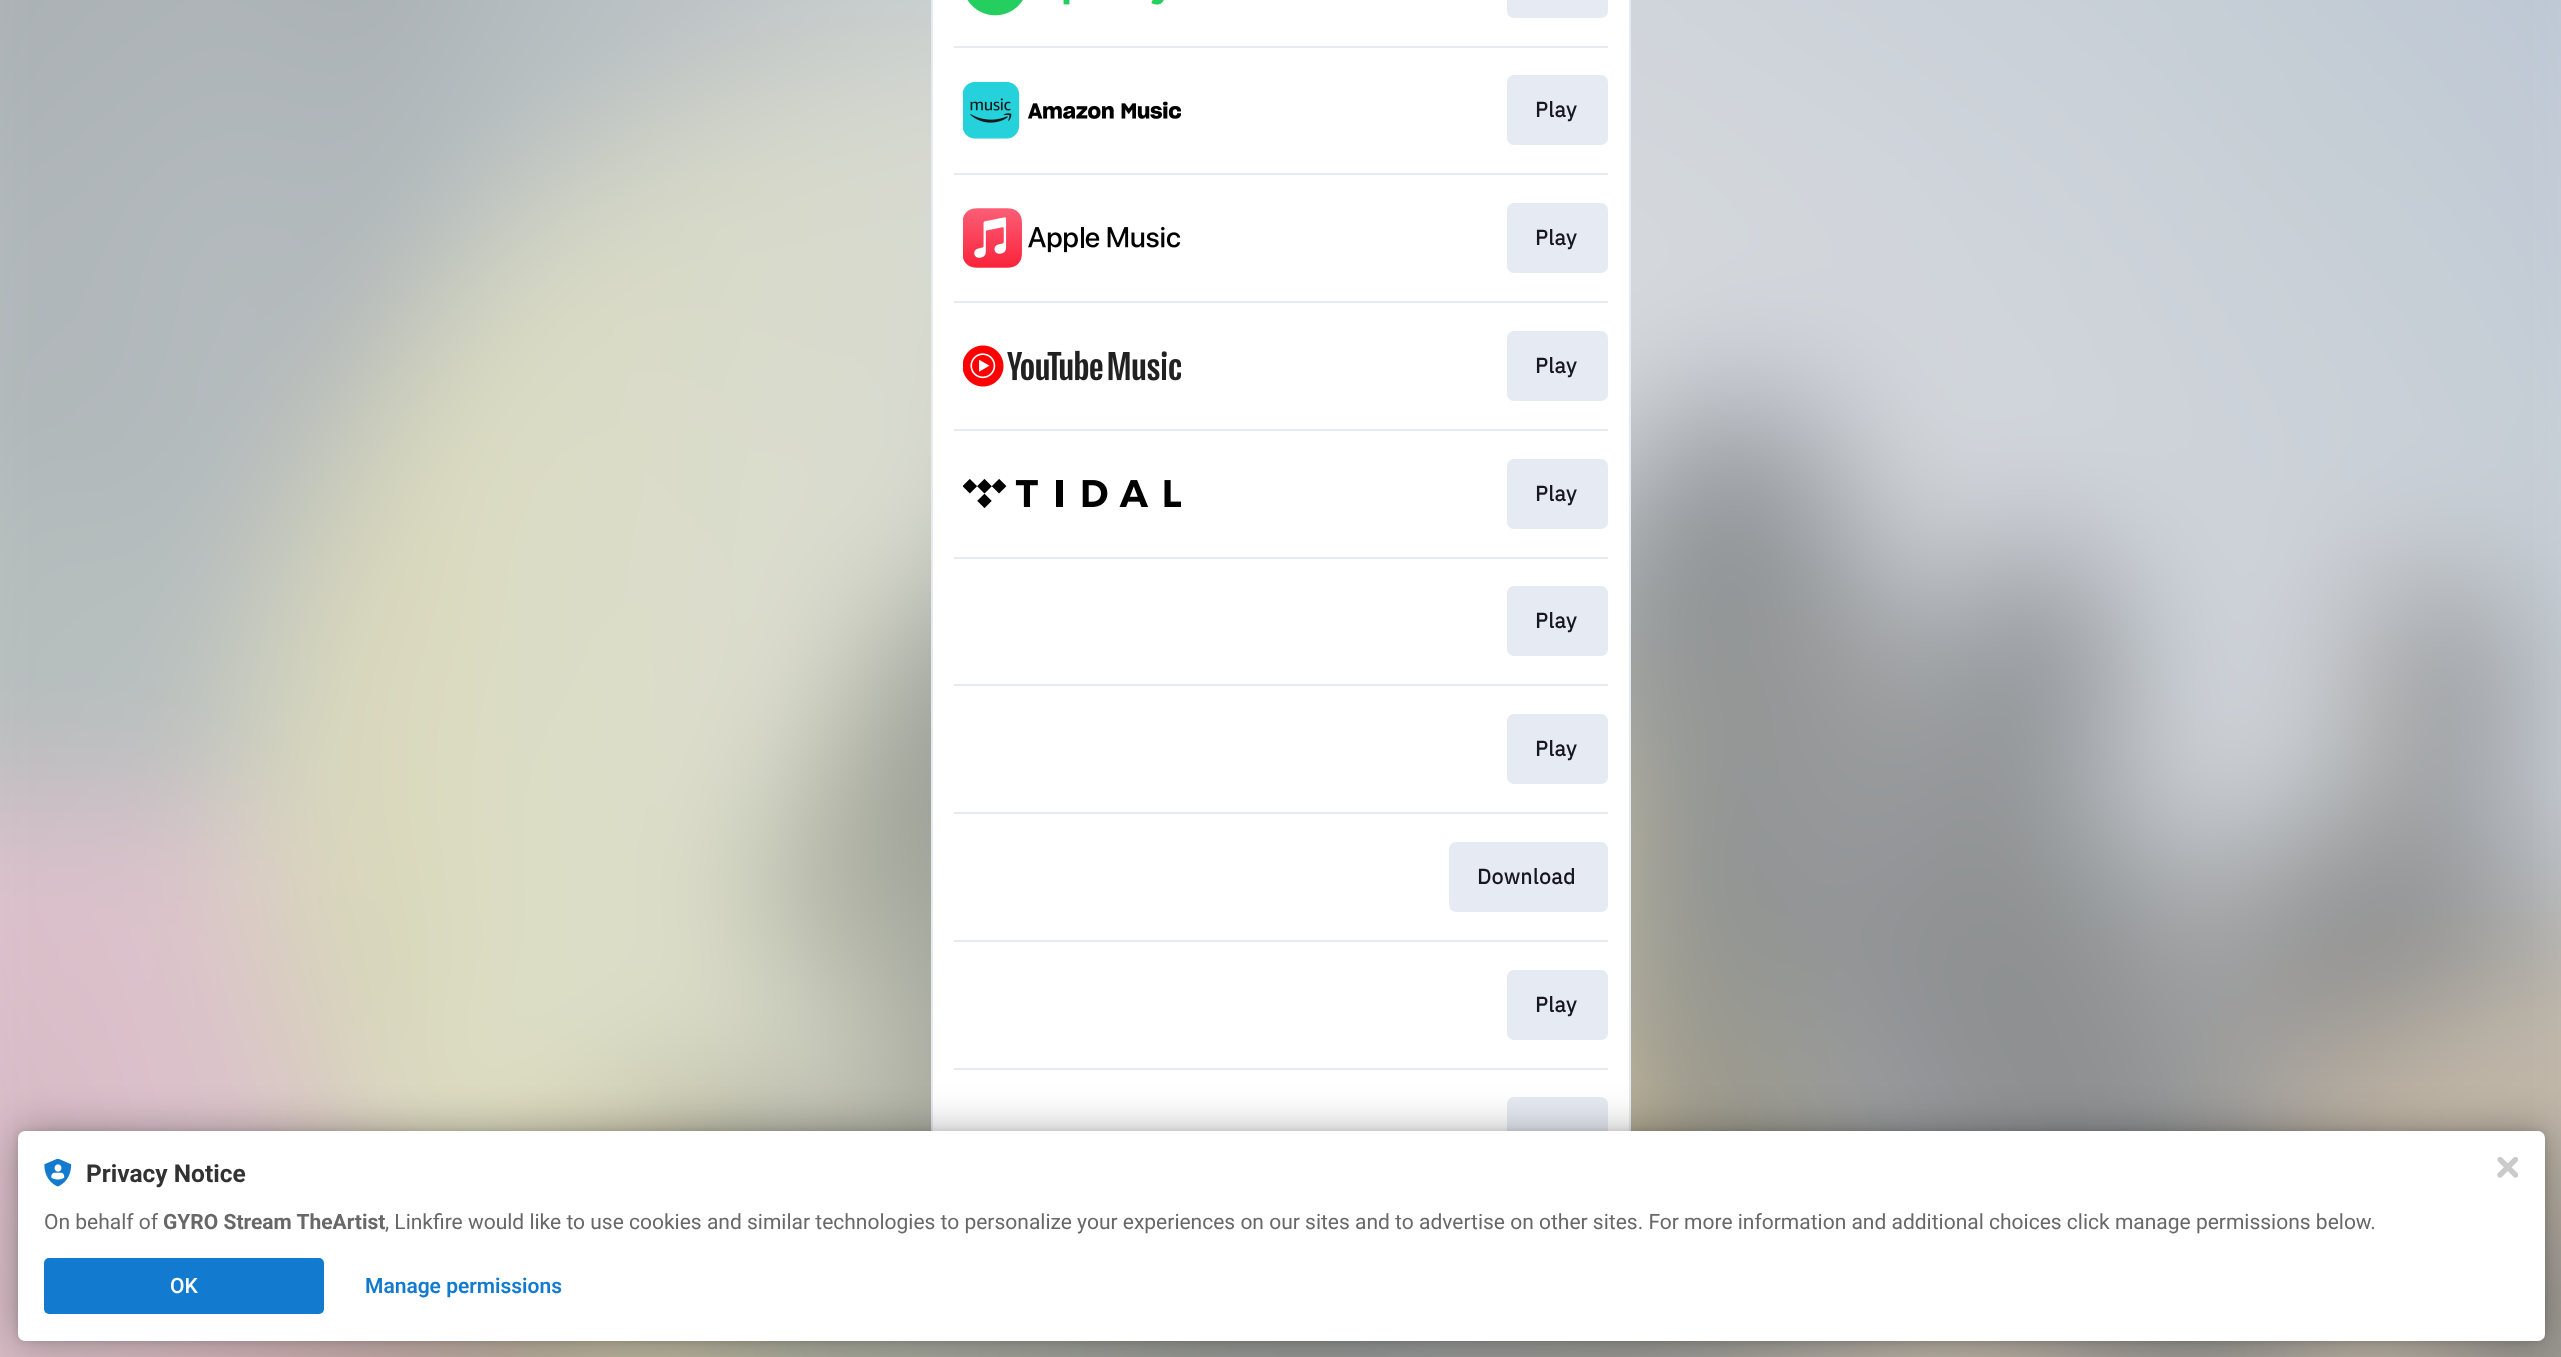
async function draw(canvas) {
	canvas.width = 2561;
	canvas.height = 1357;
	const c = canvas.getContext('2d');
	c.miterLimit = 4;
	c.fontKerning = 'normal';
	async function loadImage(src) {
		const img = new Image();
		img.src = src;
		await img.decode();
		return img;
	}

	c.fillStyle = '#fff';
	c.fillRect(0, 0, 2561, 1357);
	c.drawImage(await loadImage('img1.png'), 0, 0, 2561, 1357);
	c.strokeStyle = '#e6eaf2';
	c.lineWidth = 2;
	c.strokeRect(932, -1, 698, 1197);
	c.fillRect(933, 0, 696, 1131);
	c.drawImage(await loadImage('img2.png'), 967, 0, 197, 16);
	c.fillStyle = '#e6eaf2';
	c.beginPath();
	c.roundRect(1507, -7, 101, 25, 7);
	c.fill();
	c.fillRect(954, 46, 654, 2);
	c.drawImage(await loadImage('img3.png'), 963, 81, 218, 58);
	c.beginPath();
	c.roundRect(1507, 75, 101, 70, 7);
	c.fill();
	c.letterSpacing = '0.5px';
	c.font = 'bold 21px IBM Plex Sans';
	c.fillStyle = '#181721';
	c.fillText('Play', 1535, 117);
	c.fillStyle = '#e6eaf2';
	c.fillRect(954, 173, 654, 2);
	c.drawImage(await loadImage('img4.png'), 963, 208, 218, 60);
	c.beginPath();
	c.roundRect(1507, 203, 101, 70, 7);
	c.fill();
	c.fillStyle = '#181721';
	c.fillText('Play', 1535, 245);
	c.fillStyle = '#e6eaf2';
	c.fillRect(954, 301, 654, 2);
	c.drawImage(await loadImage('img5.png'), 963, 345, 218, 42);
	c.beginPath();
	c.roundRect(1507, 331, 101, 70, 7);
	c.fill();
	c.fillStyle = '#181721';
	c.fillText('Play', 1535, 373);
	c.fillStyle = '#e6eaf2';
	c.fillRect(954, 429, 654, 2);
	c.drawImage(await loadImage('img6.png'), 963, 478, 218, 30);
	c.beginPath();
	c.roundRect(1507, 459, 101, 70, 7);
	c.fill();
	c.fillStyle = '#181721';
	c.fillText('Play', 1535, 501);
	c.fillStyle = '#e6eaf2';
	c.fillRect(954, 557, 654, 2);
	c.beginPath();
	c.roundRect(1507, 586, 101, 70, 7);
	c.fill();
	c.fillStyle = '#181721';
	c.fillText('Play', 1535, 628);
	c.fillStyle = '#e6eaf2';
	c.fillRect(954, 684, 654, 2);
	c.beginPath();
	c.roundRect(1507, 714, 101, 70, 7);
	c.fill();
	c.fillStyle = '#181721';
	c.fillText('Play', 1535, 756);
	c.fillStyle = '#e6eaf2';
	c.fillRect(954, 812, 654, 2);
	c.beginPath();
	c.roundRect(1449, 842, 159, 70, 7);
	c.fill();
	c.fillStyle = '#181721';
	c.fillText('Download', 1477, 884);
	c.fillStyle = '#e6eaf2';
	c.fillRect(954, 940, 654, 2);
	c.beginPath();
	c.roundRect(1507, 970, 101, 70, 7);
	c.fill();
	c.fillStyle = '#181721';
	c.fillText('Play', 1535, 1012);
	c.fillStyle = '#e6eaf2';
	c.fillRect(954, 1068, 654, 2);
	c.beginPath();
	c.roundRect(1507, 1097, 101, 70, 7);
	c.fill();
	c.fillStyle = '#0000001f';
	c.filter = 'blur(3.5px)';
	c.beginPath();
	c.roundRect(18, 1131, 2527, 210, 7);
	c.fill();
	c.filter = 'none';
	c.fillStyle = '#0000004d';
	c.filter = 'blur(21px)';
	c.beginPath();
	c.roundRect(18, 1131, 2527, 210, 7);
	c.fill();
	c.filter = 'none';
	c.fillStyle = '#fff';
	c.beginPath();
	c.roundRect(18, 1131, 2527, 210, 7);
	c.fill();
	c.drawImage(await loadImage('img7.png'), 44, 1159, 28, 28);
	c.letterSpacing = '0px';
	c.font = 'bold 24.5px Roboto';
	c.fillStyle = '#323232';
	c.fillText('Privacy Notice', 86, 1182);
	c.font = '21px Roboto';
	c.fillStyle = '#686868';
	c.fillText('On behalf of', 44, 1229);
	c.font = 'bold 21px Roboto';
	c.fillText('GYRO Stream TheArtist', 163, 1229);
	c.font = '21px Roboto';
	c.fillText(', Linkfire would like to use cookies and similar technologies to personalize your experiences on our sites and to advertise on other sites. For more information and additional choices click manage permissions below.', 385, 1229);
	c.fillStyle = '#137bcf';
	c.beginPath();
	c.roundRect(44, 1258, 280, 56, 5);
	c.fill();
	c.font = '500 21px Roboto';
	c.fillStyle = '#fff';
	c.fillText('OK', 170, 1293);
	c.font = '600 21px Roboto';
	c.fillStyle = '#137bcf';
	c.fillText('Manage permissions', 365, 1293);
	c.drawImage(await loadImage('img8.png'), 2497, 1157, 21, 21);
}

draw(document.querySelector('canvas'));
